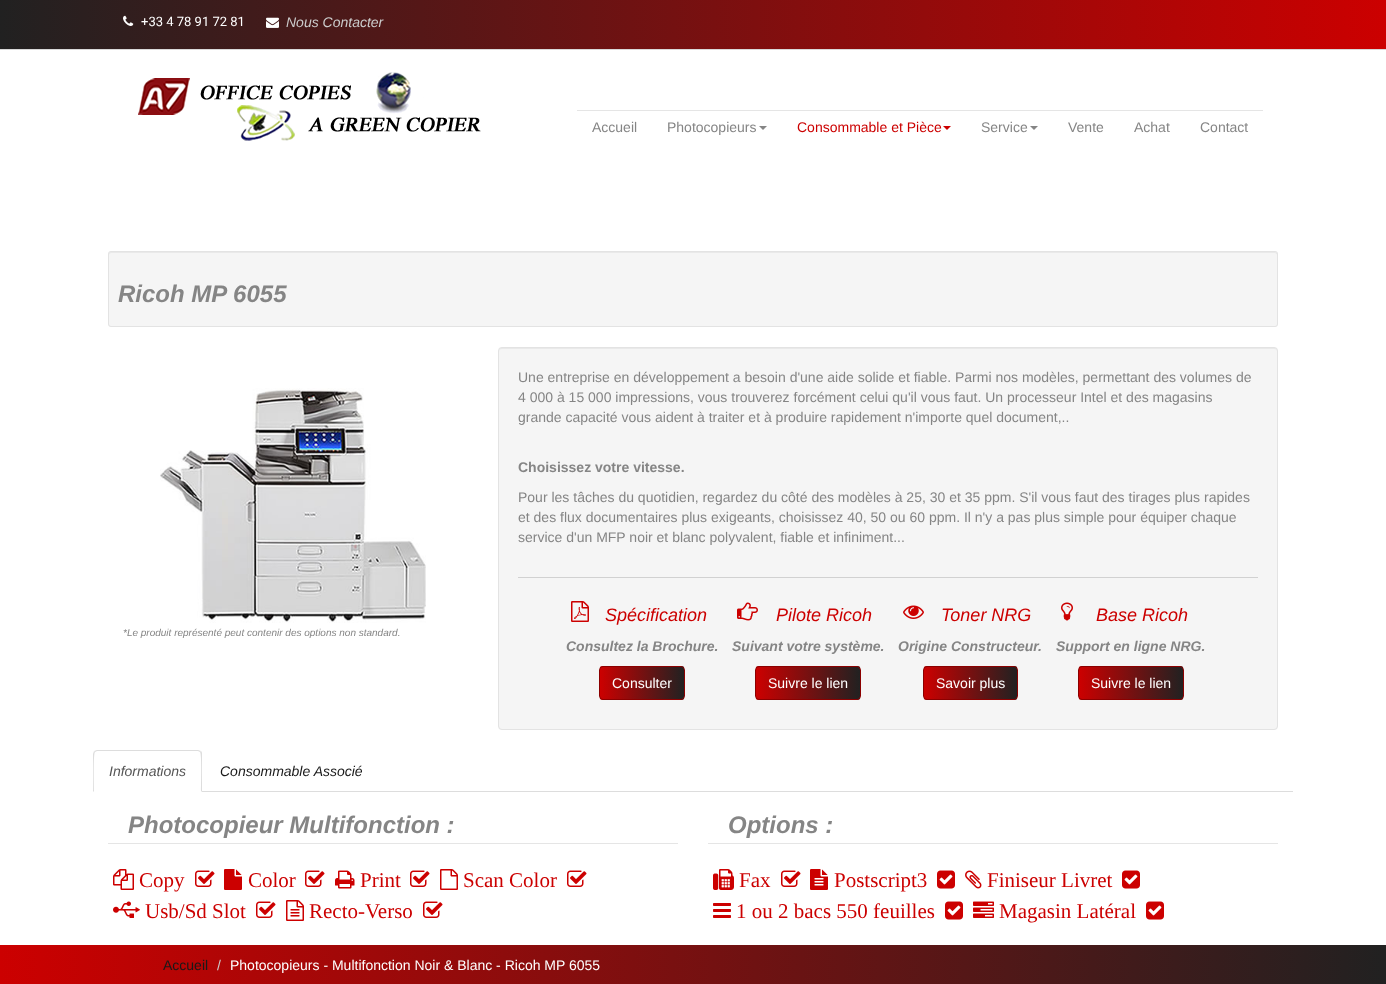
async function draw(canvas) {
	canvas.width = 1386;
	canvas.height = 984;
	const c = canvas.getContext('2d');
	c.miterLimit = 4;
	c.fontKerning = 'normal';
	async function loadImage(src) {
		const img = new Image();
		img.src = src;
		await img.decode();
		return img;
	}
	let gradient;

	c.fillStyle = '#fff';
	c.fillRect(0, 0, 1386, 984);
	gradient = c.createLinearGradient(1386, 25, 0, 24);
	gradient.addColorStop(0, '#c00');
	gradient.addColorStop(1, '#212121');
	c.fillStyle = gradient;
	c.fillRect(0, 0, 1386, 49);
	c.fillStyle = '#d9d9d9';
	c.fillRect(0, 49, 1386, 1);
	c.drawImage(await loadImage('img1.png'), 123, 15, 11, 11);
	c.font = '13px Roboto';
	c.fillStyle = '#fff';
	c.fillText('+33 4 78 91 72 81', 141, 26);
	c.drawImage(await loadImage('img2.png'), 266, 17, 13, 11);
	c.font = 'italic 14px Liberation Sans';
	c.fillStyle = '#ccc';
	c.fillText('Nous Contacter', 286, 27);
	c.drawImage(await loadImage('img3.png'), 138, 72, 343, 69);
	c.fillStyle = '#e5e5e5';
	c.fillRect(577, 110, 686, 1);
	c.font = '14px Liberation Sans';
	c.fillStyle = '#858585';
	c.fillText('Accueil', 592, 132);
	c.fillText('Photocopieurs', 667, 132);
	c.beginPath();
	c.moveTo(759, 126);
	c.lineTo(767, 126);
	c.lineTo(763, 130);
	c.closePath();
	c.fill();
	c.fillStyle = '#c00';
	c.fillText('Consommable et Pièce', 797, 132);
	c.beginPath();
	c.moveTo(943, 126);
	c.lineTo(951, 126);
	c.lineTo(947, 130);
	c.closePath();
	c.fill();
	c.fillStyle = '#858585';
	c.fillText('Service', 981, 132);
	c.beginPath();
	c.moveTo(1030, 126);
	c.lineTo(1038, 126);
	c.lineTo(1034, 130);
	c.closePath();
	c.fill();
	for (const [text, x, y] of [
		['Vente', 1068, 132],
		['Achat', 1134, 132],
		['Contact', 1200, 132],
	]) {
		c.fillText(text, x, y);
	}
	c.fillStyle = '#f5f5f5';
	c.beginPath();
	c.roundRect(108, 251, 1170, 76, 3);
	c.fill();
	c.fillStyle = '#e9e9e9';
	c.beginPath();
	c.moveTo(111, 253);
	c.lineTo(1275, 253);
	c.bezierCurveTo(1276, 253, 1277, 254, 1277, 255);
	c.lineTo(1277, 253);
	c.lineTo(1275, 252);
	c.lineTo(111, 252);
	c.bezierCurveTo(110, 252, 109, 253, 109, 254);
	c.lineTo(109, 255);
	c.bezierCurveTo(109, 254, 110, 253, 111, 253);
	c.closePath();
	c.fill();
	c.beginPath();
	c.roundRect(108.5, 251.5, 1169, 75, 2.5);
	c.strokeStyle = '#e3e3e3';
	c.stroke();
	c.font = 'italic bold 24px Liberation Sans';
	c.fillStyle = '#858585';
	c.fillText('Ricoh MP 6055', 118, 302);
	c.drawImage(await loadImage('img4.png'), 160, 388, 266, 235);
	c.font = 'italic 10px Liberation Sans';
	c.fillText('*Le produit représenté peut contenir des options non standard.', 123, 636);
	c.fillStyle = '#f5f5f5';
	c.beginPath();
	c.roundRect(498, 347, 780, 383, 4);
	c.fill();
	c.fillStyle = '#e9e9e9';
	c.beginPath();
	c.moveTo(502, 349);
	c.lineTo(1274, 349);
	c.bezierCurveTo(1276, 349, 1277, 350, 1277, 352);
	c.bezierCurveTo(1277, 350, 1276, 348, 1274, 348);
	c.lineTo(502, 348);
	c.bezierCurveTo(500, 348, 499, 350, 499, 352);
	c.bezierCurveTo(499, 350, 500, 349, 502, 349);
	c.closePath();
	c.fill();
	c.beginPath();
	c.roundRect(498.5, 347.5, 779, 382, 3.5);
	c.stroke();
	c.font = '14px Liberation Sans';
	c.fillStyle = '#858585';
	for (const [text, x, y] of [
		['Une entreprise en développement a besoin d\'une aide solide et fiable. Parmi nos modèles, permettant des volumes de', 518, 382],
		['4 000 à 15 000 impressions, vous trouverez forcément celui qu\'il vous faut. Un processeur Intel et des magasins', 518, 402],
		['grande capacité vous aident à traiter et à produire rapidement n\'importe quel document,..', 518, 422],
	]) {
		c.fillText(text, x, y);
	}
	c.font = 'bold 14px Liberation Sans';
	c.fillText('Choisissez votre vitesse.', 518, 472);
	c.font = '14px Liberation Sans';
	for (const [text, x, y] of [
		['Pour les tâches du quotidien, regardez du côté des modèles à 25, 30 et 35 ppm. S\'il vous faut des tirages plus rapides', 518, 502],
		['et des flux documentaires plus exigeants, choisissez 40, 50 ou 60 ppm. Il n\'y a pas plus simple pour équiper chaque', 518, 522],
		['service d\'un MFP noir et blanc polyvalent, fiable et infiniment...', 518, 542],
	]) {
		c.fillText(text, x, y);
	}
	c.fillStyle = '#d1d1d1';
	c.fillRect(518, 577, 740, 1);
	c.drawImage(await loadImage('img5.png'), 571, 601, 18, 21);
	c.font = 'italic 18px Liberation Sans';
	c.fillStyle = '#c00';
	c.fillText('Spécification', 605, 621);
	c.font = 'italic bold 14px Liberation Sans';
	c.fillStyle = '#858585';
	c.fillText('Consultez la Brochure.', 566, 651);
	c.save();
	c.beginPath();
	c.roundRect(599, 666, 86, 34, 4);
	c.clip();
	gradient = c.createLinearGradient(600, 683, 684, 683);
	gradient.addColorStop(0, '#c00');
	gradient.addColorStop(1, '#212121');
	c.fillStyle = gradient;
	c.fillRect(600, 666, 84, 34);
	c.restore();
	c.beginPath();
	c.roundRect(599.5, 666.5, 85, 33, 3.5);
	c.strokeStyle = '#8b0000';
	c.stroke();
	c.font = '14px Liberation Sans';
	c.fillStyle = '#fff';
	c.fillText('Consulter', 612, 688);
	c.drawImage(await loadImage('img6.png'), 737, 602, 21, 19);
	c.font = 'italic 18px Liberation Sans';
	c.fillStyle = '#c00';
	c.fillText('Pilote Ricoh', 776, 621);
	c.font = 'italic bold 14px Liberation Sans';
	c.fillStyle = '#858585';
	c.fillText('Suivant votre système.', 732, 651);
	c.save();
	c.beginPath();
	c.roundRect(755, 666, 106, 34, 4);
	c.clip();
	gradient = c.createLinearGradient(756, 683, 860, 683);
	gradient.addColorStop(0, '#c00');
	gradient.addColorStop(1, '#212121');
	c.fillStyle = gradient;
	c.fillRect(756, 666, 104, 34);
	c.restore();
	c.beginPath();
	c.roundRect(755.5, 666.5, 105, 33, 3.5);
	c.stroke();
	c.font = '14px Liberation Sans';
	c.fillStyle = '#fff';
	c.fillText('Suivre le lien', 768, 688);
	c.drawImage(await loadImage('img7.png'), 903, 605, 21, 14);
	c.font = 'italic 18px Liberation Sans';
	c.fillStyle = '#c00';
	c.fillText('Toner NRG', 941, 621);
	c.font = 'italic bold 14px Liberation Sans';
	c.fillStyle = '#858585';
	c.fillText('Origine Constructeur.', 898, 651);
	c.save();
	c.beginPath();
	c.roundRect(923, 666, 95, 34, 4);
	c.clip();
	gradient = c.createLinearGradient(924, 683, 1017, 683);
	gradient.addColorStop(0, '#c00');
	gradient.addColorStop(1, '#212121');
	c.fillStyle = gradient;
	c.fillRect(924, 666, 93, 34);
	c.restore();
	c.beginPath();
	c.roundRect(923.5, 666.5, 94, 33, 3.5);
	c.stroke();
	c.font = '14px Liberation Sans';
	c.fillStyle = '#fff';
	c.fillText('Savoir plus', 936, 688);
	c.drawImage(await loadImage('img8.png'), 1061, 602, 12, 19);
	c.font = 'italic 18px Liberation Sans';
	c.fillStyle = '#c00';
	c.fillText('Base Ricoh', 1096, 621);
	c.font = 'italic bold 14px Liberation Sans';
	c.fillStyle = '#858585';
	c.fillText('Support en ligne NRG.', 1056, 651);
	c.save();
	c.beginPath();
	c.roundRect(1078, 666, 106, 34, 4);
	c.clip();
	gradient = c.createLinearGradient(1079, 683, 1183, 683);
	gradient.addColorStop(0, '#c00');
	gradient.addColorStop(1, '#212121');
	c.fillStyle = gradient;
	c.fillRect(1079, 666, 104, 34);
	c.restore();
	c.beginPath();
	c.roundRect(1078.5, 666.5, 105, 33, 3.5);
	c.stroke();
	c.font = '14px Liberation Sans';
	c.fillStyle = '#fff';
	c.fillText('Suivre le lien', 1091, 688);
	c.fillStyle = '#ddd';
	c.fillRect(202, 791, 1091, 1);
	c.beginPath();
	c.moveTo(97, 750);
	c.lineTo(94, 751);
	c.lineTo(95, 752);
	c.lineTo(97, 751);
	c.lineTo(198, 751);
	c.lineTo(200, 752);
	c.lineTo(201, 751);
	c.lineTo(198, 750);
	c.closePath();
	c.fill();
	c.beginPath();
	c.moveTo(202, 792);
	c.lineTo(202, 754);
	c.bezierCurveTo(202, 753, 202, 752, 201, 751);
	c.lineTo(200, 752);
	c.bezierCurveTo(202, 754, 201, 786, 201, 791);
	c.closePath();
	c.fill();
	c.beginPath();
	c.moveTo(93, 792);
	c.lineTo(94, 791);
	c.bezierCurveTo(94, 786, 93, 754, 95, 752);
	c.lineTo(94, 751);
	c.lineTo(93, 754);
	c.closePath();
	c.fill();
	c.font = 'italic 14px Liberation Sans';
	c.fillStyle = '#555';
	c.fillText('Informations', 109, 776);
	c.fillStyle = '#191919';
	c.fillText('Consommable Associé', 220, 776);
	c.fillStyle = '#e5e5e5';
	c.fillRect(108, 843, 570, 1);
	c.font = 'italic bold 24px Liberation Sans';
	c.fillStyle = '#858585';
	c.fillText('Photocopieur Multifonction :', 128, 833);
	c.drawImage(await loadImage('img9.png'), 113, 869, 21, 21);
	c.font = '21px Liberation Serif';
	c.fillStyle = '#c00';
	c.fillText('Copy', 139, 887);
	c.drawImage(await loadImage('img10.png'), 195, 870, 20, 17);
	c.drawImage(await loadImage('img11.png'), 224, 869, 18, 21);
	c.fillText('Color', 248, 887);
	c.drawImage(await loadImage('img10.png'), 305, 870, 20, 17);
	c.drawImage(await loadImage('img12.png'), 335, 870, 20, 19);
	c.fillText('Print', 360, 887);
	c.drawImage(await loadImage('img10.png'), 410, 870, 20, 17);
	c.drawImage(await loadImage('img13.png'), 440, 869, 18, 21);
	c.fillText('Scan Color', 463, 887);
	c.drawImage(await loadImage('img10.png'), 567, 870, 20, 17);
	c.drawImage(await loadImage('img14.png'), 113, 901, 27, 17);
	c.fillText('Usb/Sd Slot', 145, 918);
	c.drawImage(await loadImage('img10.png'), 256, 901, 20, 17);
	c.drawImage(await loadImage('img15.png'), 286, 900, 18, 21);
	c.fillText('Recto-Verso', 309, 918);
	c.drawImage(await loadImage('img10.png'), 423, 901, 20, 17);
	c.fillStyle = '#e5e5e5';
	c.fillRect(708, 843, 570, 1);
	c.font = 'italic bold 24px Liberation Sans';
	c.fillStyle = '#858585';
	c.fillText('Options :', 728, 833);
	c.drawImage(await loadImage('img16.png'), 713, 869, 21, 21);
	c.font = '21px Liberation Serif';
	c.fillStyle = '#c00';
	c.fillText('Fax', 739, 887);
	c.drawImage(await loadImage('img10.png'), 781, 870, 20, 17);
	c.drawImage(await loadImage('img17.png'), 810, 869, 18, 21);
	c.fillText('Postscript3', 834, 887);
	c.drawImage(await loadImage('img18.png'), 937, 870, 18, 19);
	c.drawImage(await loadImage('img19.png'), 965, 870, 17, 19);
	c.fillText('Finiseur Livret', 987, 887);
	c.drawImage(await loadImage('img18.png'), 1122, 870, 18, 19);
	c.drawImage(await loadImage('img20.png'), 713, 903, 18, 15);
	c.fillText('1 ou 2 bacs 550 feuilles', 736, 918);
	c.drawImage(await loadImage('img18.png'), 945, 901, 18, 19);
	c.drawImage(await loadImage('img21.png'), 973, 901, 21, 17);
	c.fillText('Magasin Latéral', 999, 918);
	c.drawImage(await loadImage('img18.png'), 1146, 901, 18, 19);
	gradient = c.createLinearGradient(0, 970, 1386, 970);
	gradient.addColorStop(0, '#c00');
	gradient.addColorStop(1, '#212121');
	c.fillStyle = gradient;
	c.fillRect(0, 945, 1386, 39);
	c.font = '14px Liberation Sans';
	c.fillStyle = '#191919';
	c.fillText('Accueil', 163, 970);
	c.fillStyle = '#ccc';
	c.fillText('/', 217, 970);
	c.fillStyle = '#fff';
	c.fillText('Photocopieurs - Multifonction Noir & Blanc - Ricoh MP 6055', 230, 970);
}

draw(document.querySelector('canvas'));
